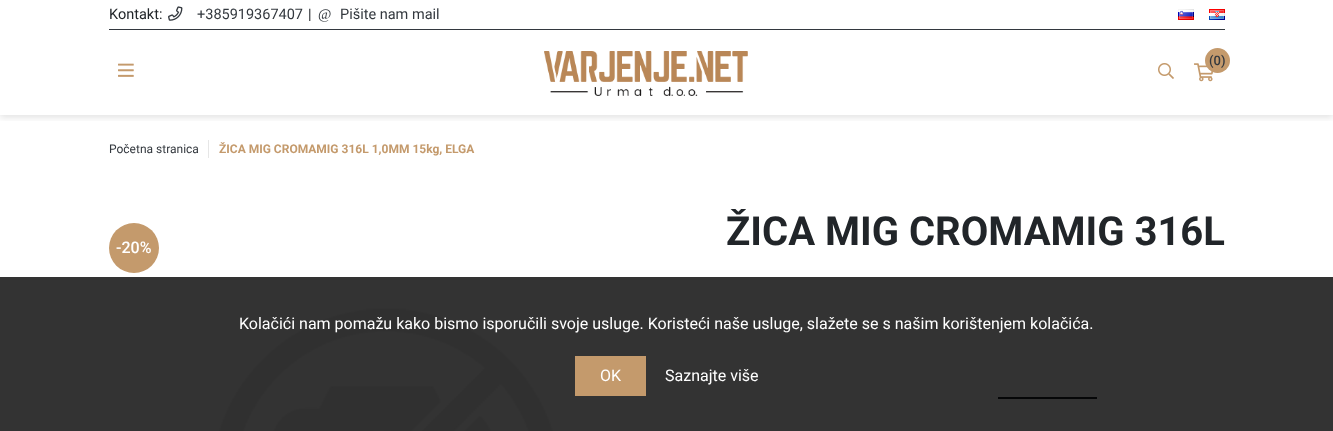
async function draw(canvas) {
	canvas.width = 1333;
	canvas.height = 431;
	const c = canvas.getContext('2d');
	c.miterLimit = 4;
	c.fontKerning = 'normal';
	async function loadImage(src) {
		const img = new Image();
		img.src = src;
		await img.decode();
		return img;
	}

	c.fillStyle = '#fff';
	c.fillRect(0, 0, 1333, 431);
	c.save();
	c.beginPath();
	c.rect(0, 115, 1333, 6);
	c.clip();
	c.fillStyle = '#0000001a';
	c.filter = 'blur(3px)';
	c.beginPath();
	c.rect(0, 3, 1333, 115);
	c.fill();
	c.filter = 'none';
	c.restore();
	c.fillStyle = '#33383f';
	c.fillRect(109, 29, 1116, 1);
	c.font = '14.5px Roboto';
	c.fillStyle = '#212529';
	c.fillText('Kontakt:', 109, 19);
	c.drawImage(await loadImage('img1.png'), 168, 6, 15, 15);
	c.fillStyle = '#33383e';
	c.fillText('+385919367407', 197, 19);
	c.fillStyle = '#212529';
	c.fillText('|', 308, 19);
	c.font = '14.5px Liberation Serif';
	c.fillStyle = '#33383e';
	c.fillText('@', 318, 19);
	c.font = '14.5px Roboto';
	c.fillText('Pišite nam mail', 340, 19);
	c.drawImage(await loadImage('img2.png'), 1178, 9, 16, 11);
	c.drawImage(await loadImage('img3.png'), 1209, 9, 16, 11);
	c.drawImage(await loadImage('img4.png'), 544, 51, 204, 45);
	c.drawImage(await loadImage('img5.png'), 1194, 63, 19, 19);
	c.fillStyle = '#c49a6c';
	c.beginPath();
	c.arc(1217.5, 60.5, 12.5, 0, 2 * Math.PI);
	c.fill();
	c.font = '500 13px Roboto';
	c.fillStyle = '#33383e';
	c.fillText('(0)', 1209, 65);
	c.drawImage(await loadImage('img6.png'), 1158, 63, 16, 16);
	c.drawImage(await loadImage('img7.png'), 118, 63, 16, 14);
	c.fillStyle = '#e6e6e6';
	c.fillRect(208, 140, 1, 18);
	c.font = '12px Roboto';
	c.fillStyle = '#33383e';
	c.fillText('Početna stranica', 109, 153);
	c.font = 'bold 12px Roboto';
	c.fillStyle = '#c49a6c';
	c.fillText('ŽICA MIG CROMAMIG 316L 1,0MM 15kg, ELGA', 219, 153);
	c.font = 'bold 40px Roboto';
	c.fillStyle = '#212529';
	c.fillText('ŽICA MIG CROMAMIG 316L', 726, 245);
	c.fillStyle = '#c49a6c';
	c.beginPath();
	c.arc(134, 248, 25, 0, 2 * Math.PI);
	c.fill();
	c.font = '500 16px Roboto';
	c.fillStyle = '#fff';
	c.fillText('-20%', 116, 253);
	c.drawImage(await loadImage('img8.png'), 219, 308, 334, 123);
	c.fillStyle = '#212529';
	c.fillRect(998, 397, 99, 2);
	c.fillStyle = '#000000cc';
	c.fillRect(0, 277, 1333, 154);
	c.font = '16px Roboto';
	c.fillStyle = '#fff';
	c.fillText('Kolačići nam pomažu kako bismo isporučili svoje usluge. Koristeći naše usluge, slažete se s našim korištenjem kolačića.', 239, 329);
	c.fillStyle = '#c49a6c';
	c.fillRect(575, 356, 71, 40);
	c.fillStyle = '#fff';
	c.fillText('OK', 600, 381);
	c.fillText('Saznajte više', 665, 381);
}

draw(document.querySelector('canvas'));
